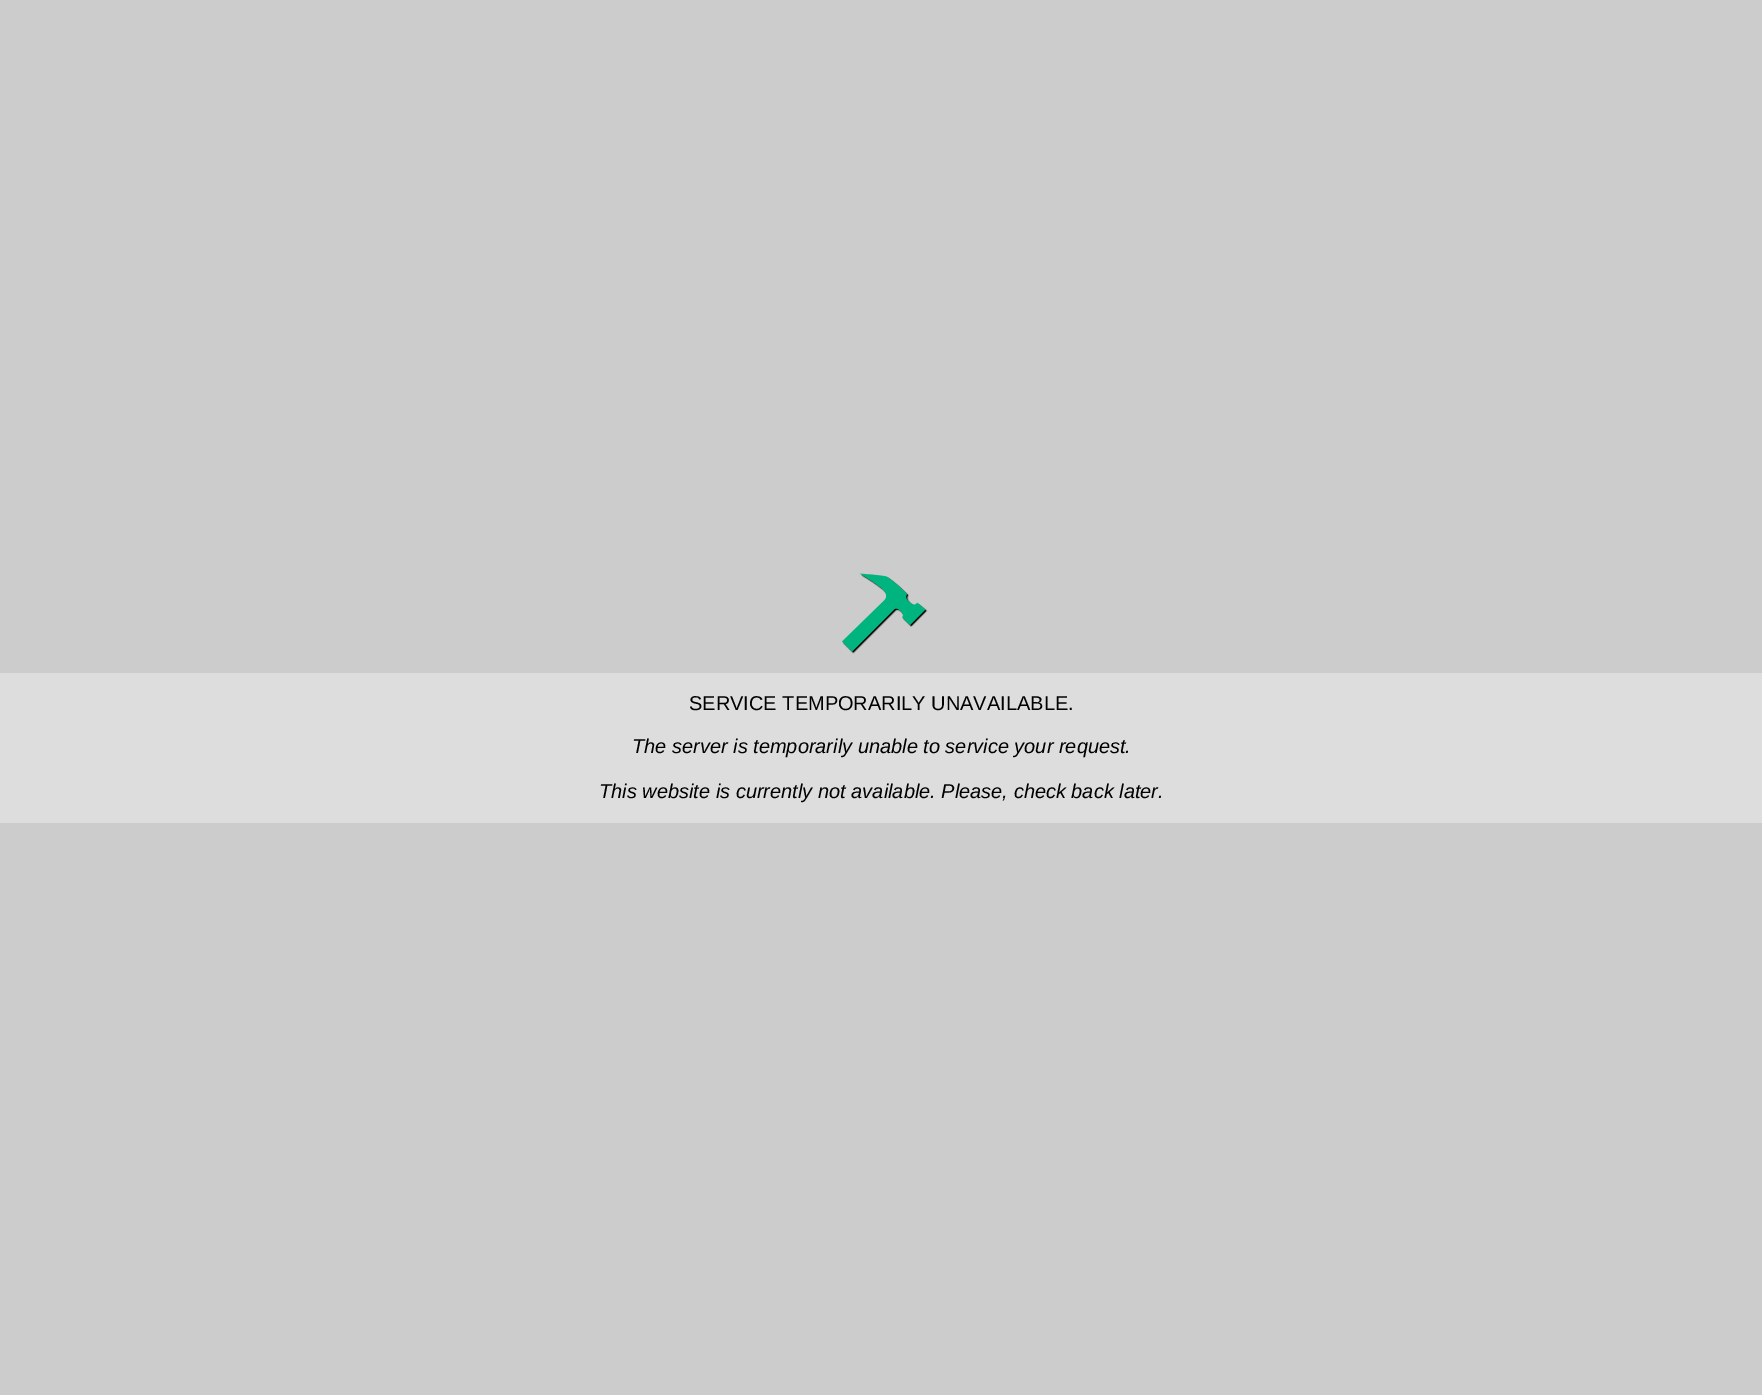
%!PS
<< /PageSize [1762 1395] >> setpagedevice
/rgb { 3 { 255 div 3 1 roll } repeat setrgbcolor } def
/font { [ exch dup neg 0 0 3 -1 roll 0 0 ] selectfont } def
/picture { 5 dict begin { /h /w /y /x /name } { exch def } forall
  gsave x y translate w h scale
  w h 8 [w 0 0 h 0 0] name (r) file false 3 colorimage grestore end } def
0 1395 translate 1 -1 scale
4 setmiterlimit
204 204 204 rgb
0 0 1762 1395 rectfill
(img/1.rgb) 842 573 86 81 picture
221 221 221 rgb
0 673 1762 150 rectfill
/LiberationSans-Regular 20 font
0 0 0 rgb
689 710 moveto (SERVICE TEMPORARILY UNAVAILABLE.) show
/LiberationSans-Italic 20 font
632 753 moveto (The server is temporarily unable to service your request.) show
599 798 moveto (This website is currently not available. Please, check back later.) show
showpage
